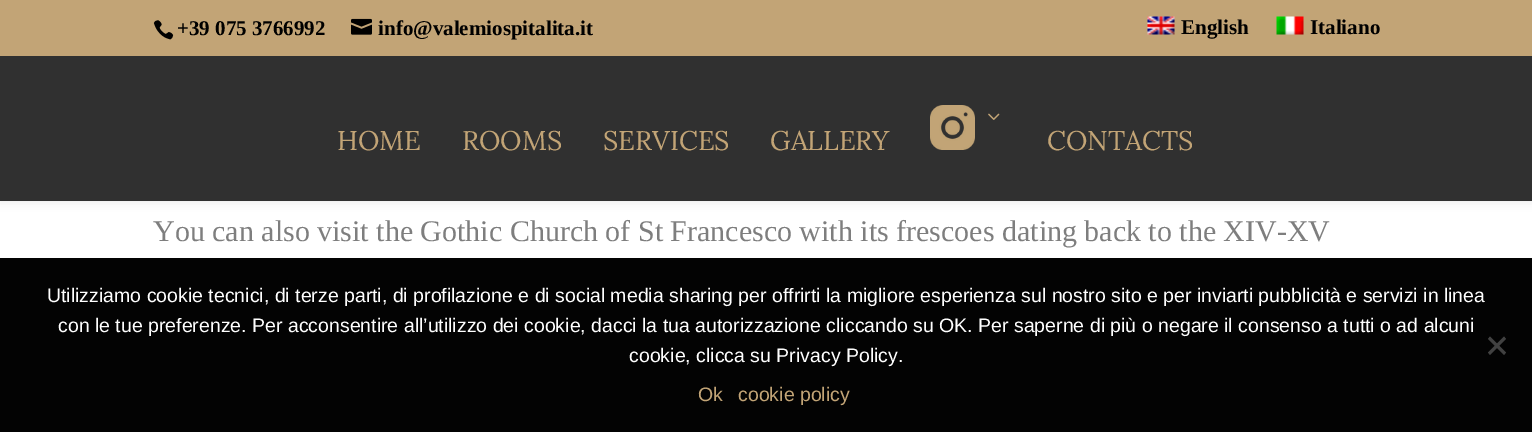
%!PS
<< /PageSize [1532 432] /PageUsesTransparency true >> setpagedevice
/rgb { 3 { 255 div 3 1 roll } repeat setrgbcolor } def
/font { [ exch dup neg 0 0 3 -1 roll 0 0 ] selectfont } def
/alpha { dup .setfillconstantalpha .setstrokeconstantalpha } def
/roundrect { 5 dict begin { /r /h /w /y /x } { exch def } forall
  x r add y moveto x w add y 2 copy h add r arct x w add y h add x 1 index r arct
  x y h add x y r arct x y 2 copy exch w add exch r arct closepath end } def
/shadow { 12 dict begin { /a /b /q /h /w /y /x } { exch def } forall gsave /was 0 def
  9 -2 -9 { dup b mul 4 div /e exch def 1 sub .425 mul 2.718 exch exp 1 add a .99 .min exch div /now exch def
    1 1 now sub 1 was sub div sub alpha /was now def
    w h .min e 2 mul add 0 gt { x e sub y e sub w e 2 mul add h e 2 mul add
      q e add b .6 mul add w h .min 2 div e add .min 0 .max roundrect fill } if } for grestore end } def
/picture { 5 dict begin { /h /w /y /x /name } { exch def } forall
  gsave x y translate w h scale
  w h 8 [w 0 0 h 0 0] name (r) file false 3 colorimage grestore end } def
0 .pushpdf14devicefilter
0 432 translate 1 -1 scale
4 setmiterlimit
255 255 255 rgb
0 0 1532 432 rectfill
3 3 3 rgb
0 258 1532 174 rectfill
0 0 0 rgb
0 56 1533 145 0 5 0.1 shadow
194 164 118 rgb
0 0 1532 56 rectfill
(img/1.rgb) 153 20 21 20 picture
(img/2.rgb) 351 18 21 17 picture
(img/3.rgb) 1147 16 28 19 picture
(img/4.rgb) 1276 16 28 19 picture
48 48 48 rgb
0 56 1532 145 rectfill
(img/5.rgb) 930 105 45 45 picture
(img/6.rgb) 988 113 12 7 picture
65 65 65 rgb
1504 336.5 moveto 1506 339 lineto 1490 355 lineto 1488 352.5 lineto closepath fill
1488 339 moveto 1490 336.5 lineto 1506 352.5 lineto 1504 355 lineto closepath fill
/LiberationSerif-Bold 21 font
0 0 0 rgb
[
  [(+39 075 3766992) 177 35]
  [(info@valemiospitalita.it) 378 35]
  [(English) 1181 34]
  [(Italiano) 1310 34]
] { aload pop moveto show } forall
/Lora-Regular 27 font
194 164 118 rgb
[
  [(HOME) 337 150]
  [(ROOMS) 462 150]
  [(SERVICES) 603 150]
  [(GALLERY) 770 150]
  [(CONTACTS) 1047 150]
] { aload pop moveto show } forall
/LiberationSerif-Regular 30 font
126 126 126 rgb
153 241 moveto (You can also visit the Gothic Church of St Francesco with its frescoes dating back to the XIV-XV) show
/LiberationSans-Regular 19.5 font
255 255 255 rgb
[
  [(Utilizziamo cookie tecnici, di terze parti, di profilazione e di social media sharing per offrirti la migliore esperienza sul nostro sito e per inviarti pubblicità e servizi in linea) 47 302]
  [(con le tue preferenze. Per acconsentire all’utilizzo dei cookie, dacci la tua autorizzazione cliccando su OK. Per saperne di più o negare il consenso a tutti o ad alcuni) 58 332]
  [(cookie, clicca su Privacy Policy.) 629 362]
] { aload pop moveto show } forall
194 164 118 rgb
698 401 moveto (Ok) show
738 401 moveto (cookie policy) show
.poppdf14devicefilter showpage
